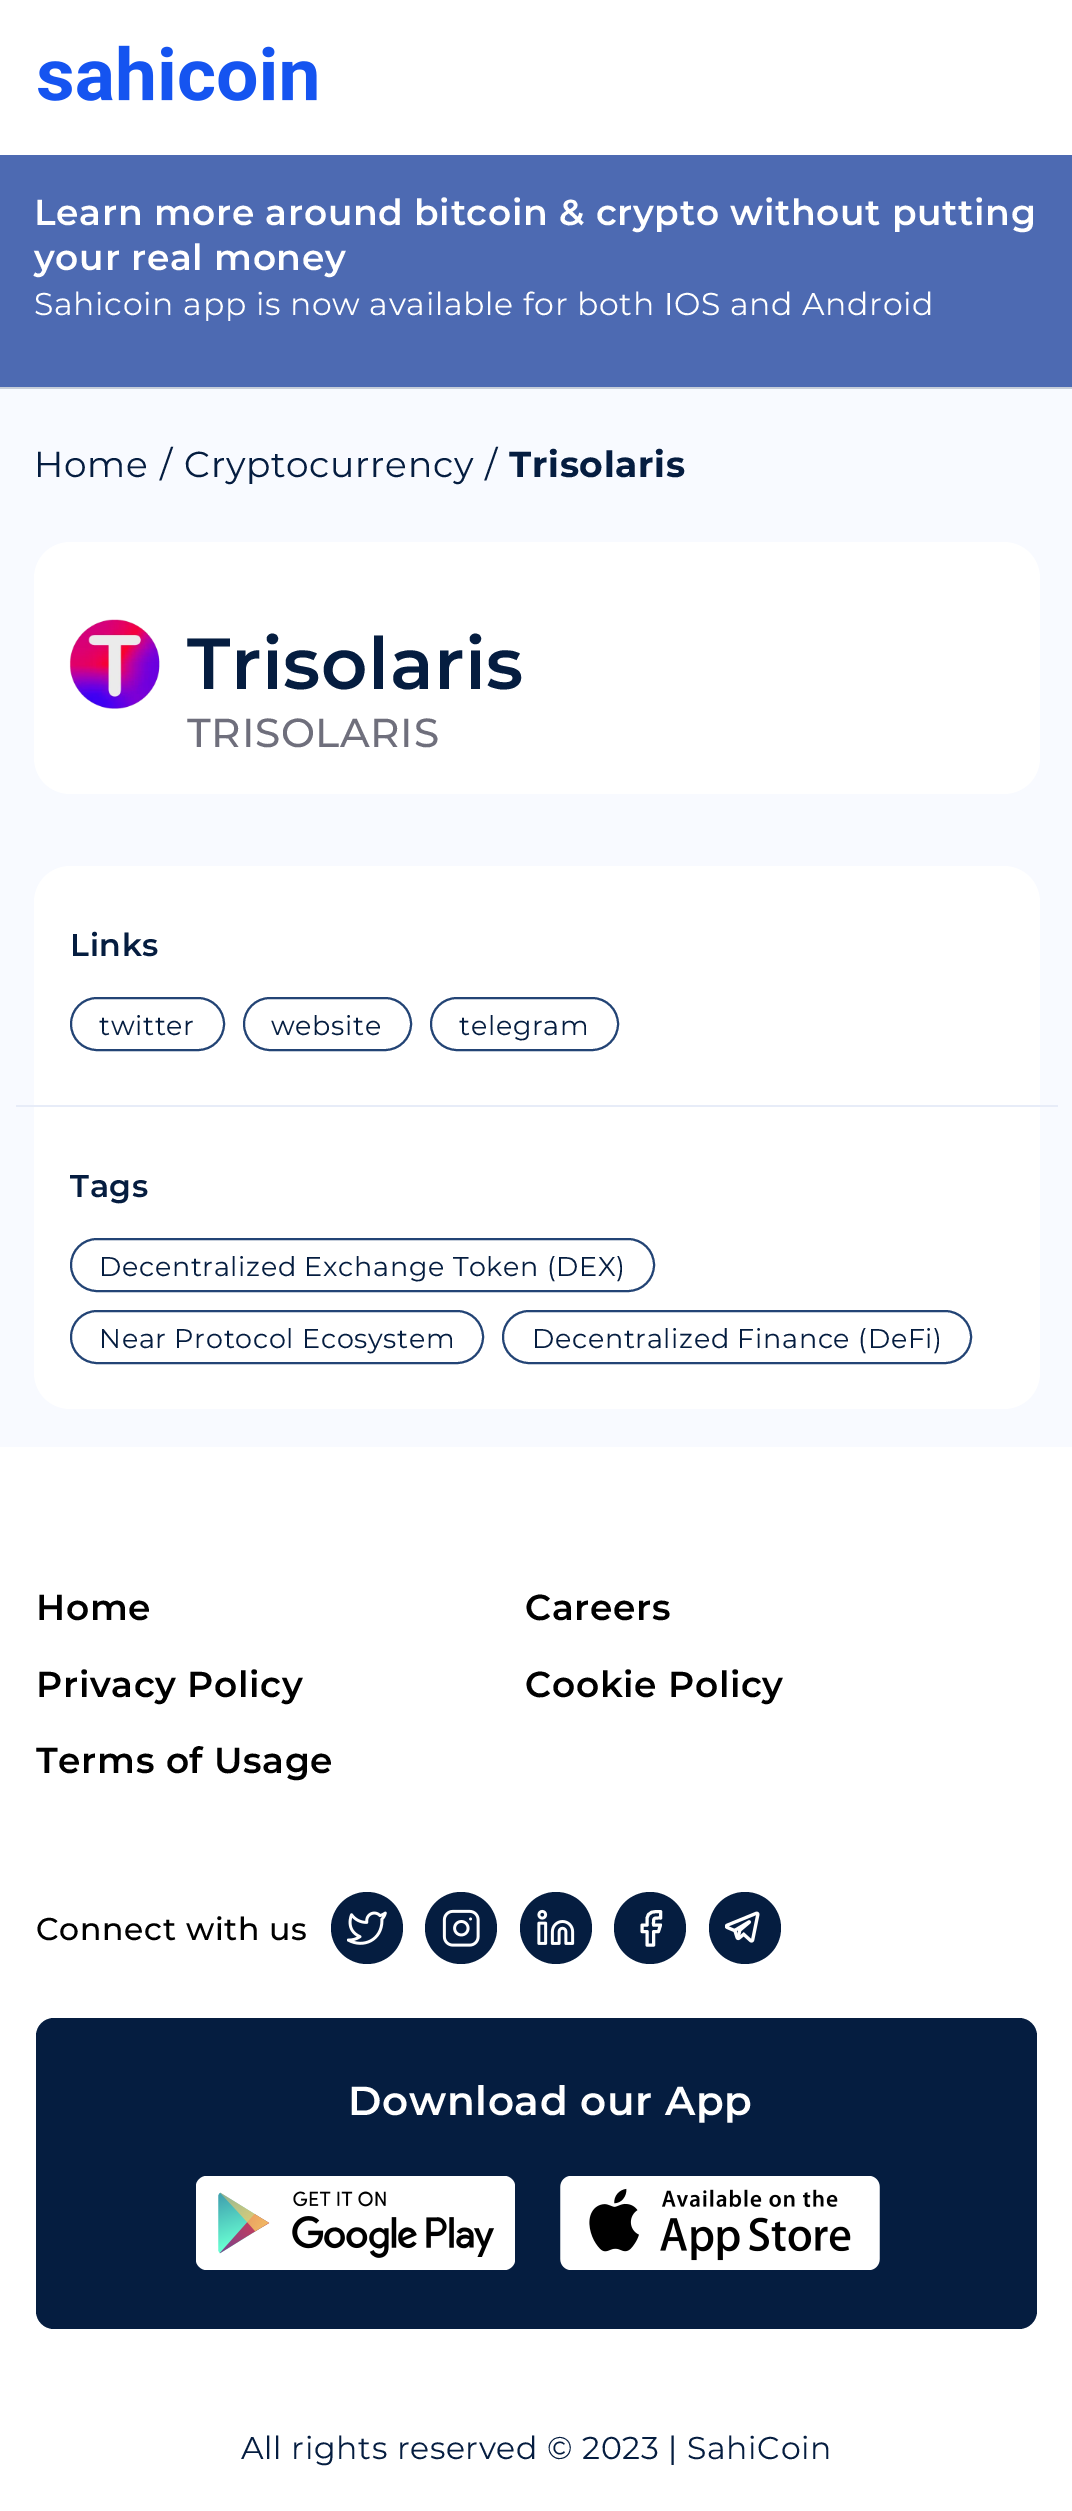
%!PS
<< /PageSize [1072 2511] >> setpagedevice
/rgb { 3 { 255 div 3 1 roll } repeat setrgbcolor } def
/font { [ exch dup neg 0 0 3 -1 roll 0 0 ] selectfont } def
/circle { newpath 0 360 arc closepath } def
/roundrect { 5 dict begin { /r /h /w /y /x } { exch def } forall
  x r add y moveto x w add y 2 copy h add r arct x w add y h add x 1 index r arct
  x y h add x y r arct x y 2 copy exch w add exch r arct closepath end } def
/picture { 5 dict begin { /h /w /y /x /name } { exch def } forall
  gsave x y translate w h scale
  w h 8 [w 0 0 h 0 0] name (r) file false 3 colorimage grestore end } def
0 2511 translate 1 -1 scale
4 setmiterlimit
255 255 255 rgb
0 0 1072 2511 rectfill
(img/1.rgb) 38 45 279 56 picture
[
  [0 389 1072 1058 248 250 255]
  [0 155 1072 232 77 106 178]
  [0 387 1072 2 199 206 217]
] { aload pop rgb rectfill } forall
255 255 255 rgb
34 542 1006 252 36 roundrect fill
(img/2.rgb) 69 619 91 90 picture
34 866 1006 543 36 roundrect fill
35 68 117 rgb
2 setlinewidth
71 998 153 52 26 roundrect stroke
244 998 167 52 26 roundrect stroke
431 998 187 52 26 roundrect stroke
231 236 248 rgb
16 1105 1042 2 rectfill
35 68 117 rgb
71 1239 583 52 26 roundrect stroke
71 1311 412 52 26 roundrect stroke
503 1311 468 52 26 roundrect stroke
5 29 64 rgb
367 1928 36 circle fill
(img/3.rgb) 347 1911 40 34 picture
461 1928 36 circle fill
(img/4.rgb) 442 1909 38 38 picture
556 1928 36 circle fill
(img/5.rgb) 537 1909 38 36 picture
650 1928 36 circle fill
255 255 255 rgb
3 setlinewidth
1 setlinecap
1 setlinejoin
660.5 1911.5 moveto 654.5 1911.5 647.5 1911 647 1919 curveto 647 1925 lineto 642 1925 lineto 642 1931.5 lineto 647 1931.5 lineto 647 1945 lineto 653.5 1945 lineto 653.5 1931.5 lineto 658.5 1931.5 lineto 660.5 1925 lineto 653.5 1925 lineto 653.5 1917.5 653 1918 660.5 1918 curveto closepath stroke
5 29 64 rgb
745 1928 36 circle fill
(img/6.rgb) 725 1911 35 32 picture
36 2018 1001 311 18 roundrect fill
(img/7.rgb) 196 2176 319 94 picture
(img/8.rgb) 560 2176 320 94 picture
/Montserrat-SemiBold 36 font
255 255 255 rgb
34 225 moveto 0.67 0 (Learn more around bitcoin & crypto without putting) ashow
34 270 moveto 0.67 0 (your real money) ashow
/Montserrat-Regular 31.5 font
34 315 moveto 0.67 0 (Sahicoin app is now available for both IOS and Android) ashow
/Montserrat-Regular 36 font
5 29 64 rgb
34 477 moveto 0.67 0 (Home) ashow
160 477 moveto 0.67 0 (/) ashow
184 477 moveto 0.67 0 (Cryptocurrency) ashow
485 477 moveto 0.67 0 (/) ashow
/Montserrat-Bold 36 font
509 477 moveto 0.67 0 (Trisolaris) ashow
/Montserrat-SemiBold 72 font
187 689 moveto 0.67 0 (Trisolaris) ashow
/Montserrat-Medium 40.5 font
111 111 124 rgb
187 747 moveto 0.67 0 (TRISOLARIS) ashow
/Montserrat-SemiBold 31.5 font
5 29 64 rgb
70 956 moveto 0.67 0 (Links) ashow
/Montserrat-Regular 27 font
99 1035 moveto 0.67 0 (twitter) ashow
271 1035 moveto 0.67 0 (website) ashow
459 1035 moveto 0.67 0 (telegram) ashow
/Montserrat-SemiBold 31.5 font
70 1197 moveto 0.67 0 (Tags) ashow
/Montserrat-Regular 27 font
99 1276 moveto 0.67 0 (Decentralized Exchange Token \(DEX\)) ashow
99 1348 moveto 0.67 0 (Near Protocol Ecosystem) ashow
532 1348 moveto 0.67 0 (Decentralized Finance \(DeFi\)) ashow
/Montserrat-SemiBold 36 font
0 0 0 rgb
36 1620 moveto 0.67 0 (Home) ashow
525 1620 moveto 0.67 0 (Careers) ashow
36 1697 moveto 0.67 0 (Privacy Policy) ashow
525 1697 moveto 0.67 0 (Cookie Policy) ashow
36 1773 moveto 0.67 0 (Terms of Usage) ashow
/Montserrat-Medium 31.5 font
36 1940 moveto 0.67 0 (Connect with us) ashow
/Montserrat-SemiBold 40.5 font
255 255 255 rgb
348 2115 moveto 0.67 0 (Download our App) ashow
/Montserrat-Regular 31.5 font
5 29 64 rgb
241 2459 moveto 0.67 0 (All rights reserved © 2023 | SahiCoin) ashow
showpage
